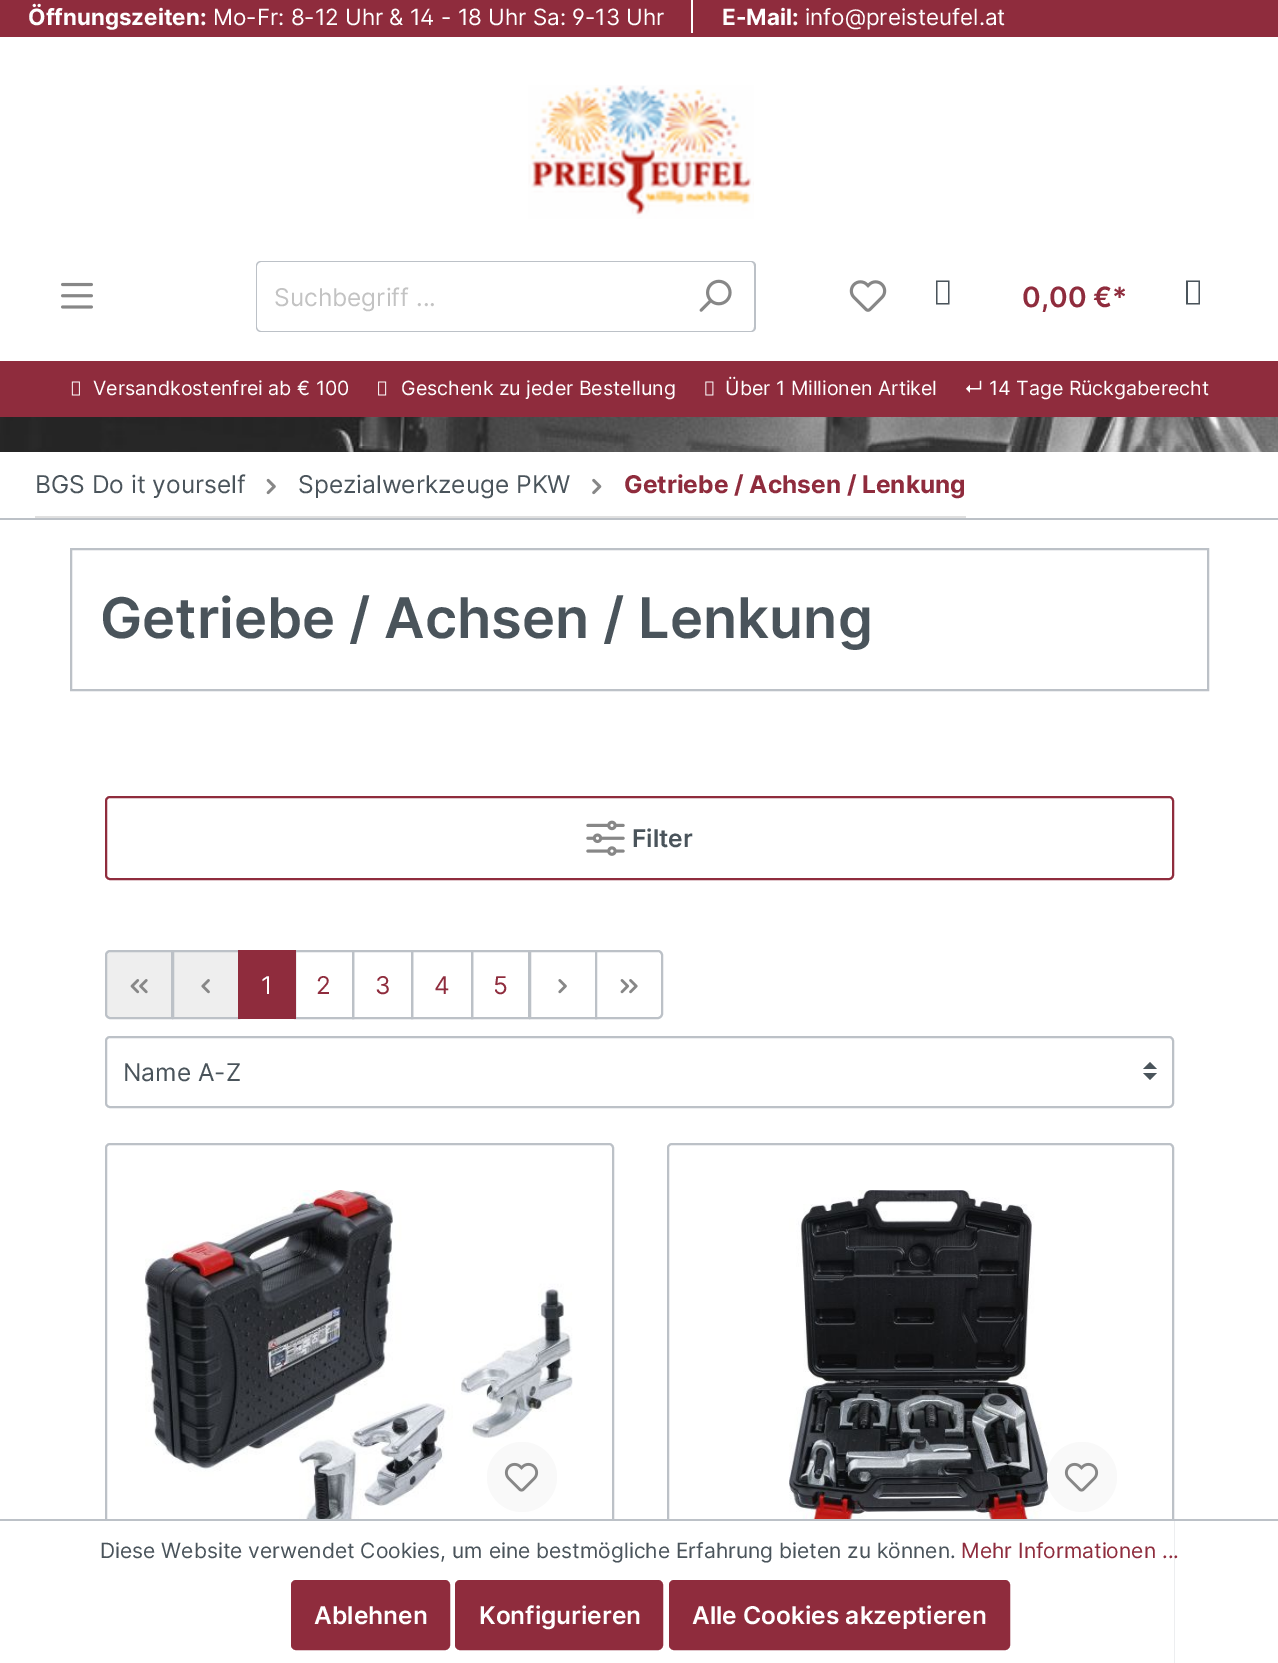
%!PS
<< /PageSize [1278 1663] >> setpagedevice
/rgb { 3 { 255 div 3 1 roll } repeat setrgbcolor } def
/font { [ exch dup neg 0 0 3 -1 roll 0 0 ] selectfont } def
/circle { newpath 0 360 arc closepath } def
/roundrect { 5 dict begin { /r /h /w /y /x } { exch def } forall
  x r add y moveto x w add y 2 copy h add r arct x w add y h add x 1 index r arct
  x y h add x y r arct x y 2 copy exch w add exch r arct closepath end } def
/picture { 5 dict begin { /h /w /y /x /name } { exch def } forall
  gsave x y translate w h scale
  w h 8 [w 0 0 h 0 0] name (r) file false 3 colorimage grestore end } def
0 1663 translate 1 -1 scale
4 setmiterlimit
255 255 255 rgb
0 0 1278 1663 rectfill
143 44 61 rgb
0 0 1278 37 rectfill
255 255 255 rgb
691 0 2 33 rectfill
(img/1.rgb) 528 85 226 134 picture
(img/2.rgb) 61 282 32 27 picture
188 193 199 rgb
261 261 moveto 676 261 lineto 676 332 lineto 261 332 lineto 258 332 256 330 256 327 curveto 256 266 lineto 256 263 258 261 261 261 curveto closepath 261 262 moveto 676 262 lineto 676 331 lineto 261 331 lineto 259 331 257 329 257 327 curveto 257 266 lineto 257 264 259 262 261 262 curveto closepath eofill
255 255 255 rgb
674 261 moveto 751 261 lineto 754 261 756 263 756 266 curveto 756 328 lineto 756 331 754 333 751 333 curveto 674 333 lineto closepath fill
188 193 199 rgb
674 261 moveto 751 261 lineto 754 261 756 263 756 266 curveto 756 327 lineto 756 330 754 332 751 332 curveto 674 332 lineto closepath 674 262 moveto 751 262 lineto 753 262 754 264 754 266 curveto 754 327 lineto 754 329 753 331 751 331 curveto 674 331 lineto closepath eofill
(img/3.rgb) 699 279 33 33 picture
(img/4.rgb) 849 280 38 32 picture
74 84 91 rgb
936 304.5 moveto 936 280.5 lineto 949.5 280.5 lineto 949.5 304.5 lineto closepath 937.5 303 moveto 948 303 lineto 948 282 lineto 937.5 282 lineto closepath fill
1186 304.5 moveto 1186 280.5 lineto 1200 280.5 lineto 1200 304.5 lineto closepath 1188 303 moveto 1198.5 303 lineto 1198.5 282 lineto 1188 282 lineto closepath fill
143 44 61 rgb
0 361 1278 56 rectfill
(img/5.rgb) 71 381 9 15 picture
(img/6.rgb) 378 381 9 15 picture
(img/7.rgb) 705 381 9 15 picture
(img/8.rgb) 0 417 1278 35 picture
188 193 199 rgb
0 518 1278 2 rectfill
224 224 224 rgb
35 516 931 2 rectfill
(img/9.rgb) 266 478 10 17 picture
(img/10.rgb) 592 478 10 17 picture
188 193 199 rgb
2 setlinewidth
71 549 1137 141 rectstroke
143 44 61 rgb
106 797 1067 82 4 roundrect stroke
(img/11.rgb) 586 820 39 36 picture
238 238 238 rgb
110 951 moveto 172 951 lineto 172 1018 lineto 110 1018 lineto 108 1018 106 1016 106 1014 curveto 106 955 lineto 106 953 108 951 110 951 curveto closepath gsave fill grestore
188 193 199 rgb
stroke
(img/12.rgb) 130 979 18 15 picture
238 238 238 rgb
173 951 moveto 239 951 lineto 239 1018 lineto 173 1018 lineto closepath gsave fill grestore
188 193 199 rgb
stroke
(img/13.rgb) 201 979 9 15 picture
295 951 58 67 rectstroke
143 44 61 rgb
238 950 58 69 rectfill
188 193 199 rgb
353 951 59 67 rectstroke
412 951 60 67 rectstroke
472 951 57 67 rectstroke
530 951 66 67 rectstroke
(img/14.rgb) 558 979 9 15 picture
255 255 255 rgb
596 951 moveto 658 951 lineto 660 951 662 953 662 955 curveto 662 1014 lineto 662 1016 660 1018 658 1018 curveto 596 1018 lineto closepath gsave fill grestore
188 193 199 rgb
stroke
(img/15.rgb) 620 979 18 15 picture
74 84 91 rgb
1150 1062 moveto 1143 1069 lineto 1157 1069 lineto closepath 1150 1080 moveto 1143 1073 lineto 1157 1073 lineto closepath fill
188 193 199 rgb
106 1037 1067 70 4 roundrect stroke
106 1144 507 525 4 roundrect stroke
(img/16.rgb) 145 1190 428 329 picture
249 249 249 rgb
522 1477 35 circle fill
(img/17.rgb) 504 1462 35 30 picture
188 193 199 rgb
668 1144 505 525 4 roundrect stroke
(img/18.rgb) 789 1190 261 329 picture
249 249 249 rgb
1082 1477 35 circle fill
(img/17.rgb) 1064 1462 35 30 picture
255 255 255 rgb
105 1521 1069 142 rectfill
188 193 199 rgb
0 1519 1278 2 rectfill
143 44 61 rgb
292 1581 157 68 4 roundrect gsave fill grestore
stroke
456 1581 206 68 4 roundrect gsave fill grestore
stroke
670 1581 339 68 4 roundrect gsave fill grestore
stroke
/Inter-Bold 22.4 font
255 255 255 rgb
28 25 moveto (Öffnungszeiten:) show
/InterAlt-Regular 22.4 font
213 25 moveto (Mo-Fr: 8-12 Uhr & 14 - 18 Uhr Sa: 9-13 Uhr) show
/Inter-Bold 22.4 font
722 25 moveto (E-Mail:) show
/Inter-Regular 22.4 font
805 25 moveto (info@preisteufel.at) show
/Inter-Regular 24.5 font
195 195 195 rgb
274 306 moveto (Suchbegriff ...) show
/Inter-SemiBold 28 font
143 44 61 rgb
1022 307 moveto (0,00 €*) show
/Inter-Regular 19.6 font
255 255 255 rgb
[
  [(Versandkostenfrei ab € 100) 93 395]
  [(Geschenk zu jeder Bestellung) 401 395]
  [(Über 1 Millionen Artikel) 725 395]
  [(↵ 14 Tage Rückgaberecht) 964 395]
] { aload pop moveto show } forall
/Inter-Regular 24.5 font
74 84 91 rgb
35 493 moveto (BGS Do it yourself) show
298 493 moveto (Spezialwerkzeuge PKW) show
/Inter-Bold 24.5 font
143 44 61 rgb
624 493 moveto (Getriebe / Achsen / Lenkung) show
/Inter-SemiBold 56 font
74 84 91 rgb
100 638 moveto (Getriebe / Achsen / Lenkung) show
/Inter-SemiBold 24.5 font
632 847 moveto (Filter) show
/Inter-Regular 24.5 font
255 255 255 rgb
261 994 moveto (1) show
143 44 61 rgb
[
  [(2) 316 994]
  [(3) 375 994]
  [(4) 434 994]
  [(5) 493 994]
] { aload pop moveto show } forall
74 84 91 rgb
123 1081 moveto (Name A-Z) show
/Inter-Regular 21 font
100 1558 moveto (Diese Website verwendet Cookies, um eine bestmögliche Erfahrung bieten zu können.) show
143 44 61 rgb
961 1558 moveto (Mehr Informationen ...) show
/Inter-SemiBold 24.5 font
255 255 255 rgb
[
  [(Ablehnen) 314 1624]
  [(Konfigurieren) 479 1624]
  [(Alle Cookies akzeptieren) 692 1624]
] { aload pop moveto show } forall
showpage
